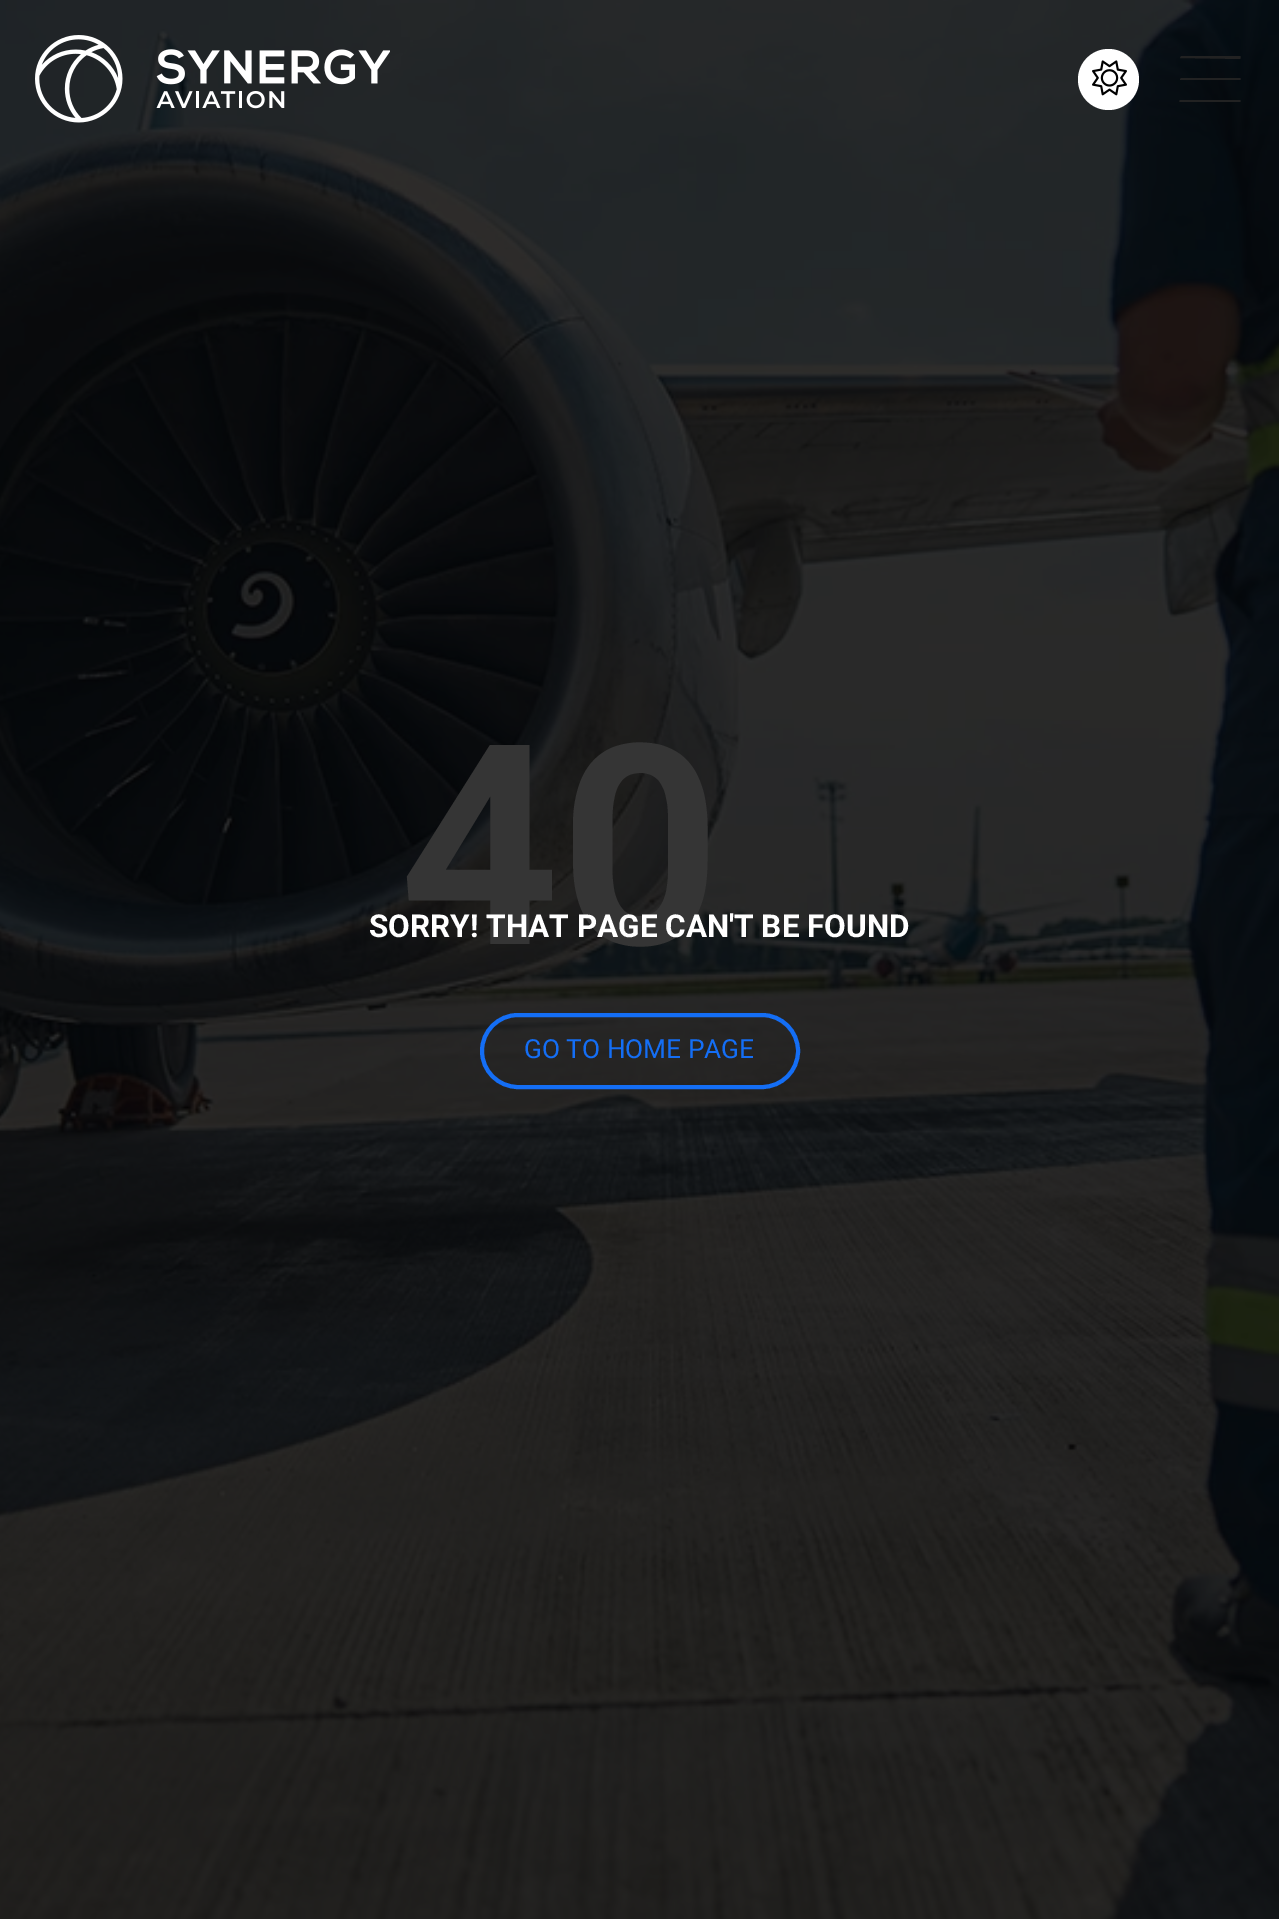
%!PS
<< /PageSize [1279 1919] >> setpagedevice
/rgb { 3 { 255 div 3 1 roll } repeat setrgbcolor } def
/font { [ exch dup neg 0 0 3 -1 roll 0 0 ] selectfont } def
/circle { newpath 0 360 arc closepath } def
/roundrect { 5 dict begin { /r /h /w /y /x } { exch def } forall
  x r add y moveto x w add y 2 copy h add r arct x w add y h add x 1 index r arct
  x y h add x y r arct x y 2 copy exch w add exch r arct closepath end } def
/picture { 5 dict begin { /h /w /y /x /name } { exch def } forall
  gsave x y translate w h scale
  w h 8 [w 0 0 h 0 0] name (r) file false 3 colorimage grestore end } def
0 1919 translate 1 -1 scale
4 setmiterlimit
255 255 255 rgb
0 0 1279 1919 rectfill
(img/3.rgb) 0 0 1279 1919 picture
(img/1.rgb) 35 35 355 88 picture
1108.5 79.5 30.5 circle fill
(img/2.rgb) 1092 60 35 36 picture
34 34 34 rgb
1180 58 moveto 1181 56 lineto 1240 56 lineto 1241 56 1241 58 1240 59 curveto closepath 1180 79 moveto 1181 78 lineto 1240 78 lineto 1241 78 1241 80 1240 80 curveto 1180 80 lineto closepath 1241 101 moveto 1240 102 lineto 1181 102 lineto 1179 102 1179 101 1180 100 curveto 1240 100 lineto closepath fill
20 110 245 rgb
4 setlinewidth
482 1015 316 72 36 roundrect stroke
/Roboto-Bold 280 font
53 53 53 rgb
399 944 moveto (40) show
/Roboto-Bold 31.5 font
255 255 255 rgb
369 937 moveto (SORRY! THAT PAGE CAN'T BE FOUND) show
/Roboto-Regular 26.25 font
20 110 245 rgb
524 1058 moveto (GO TO HOME PAGE) show
showpage
